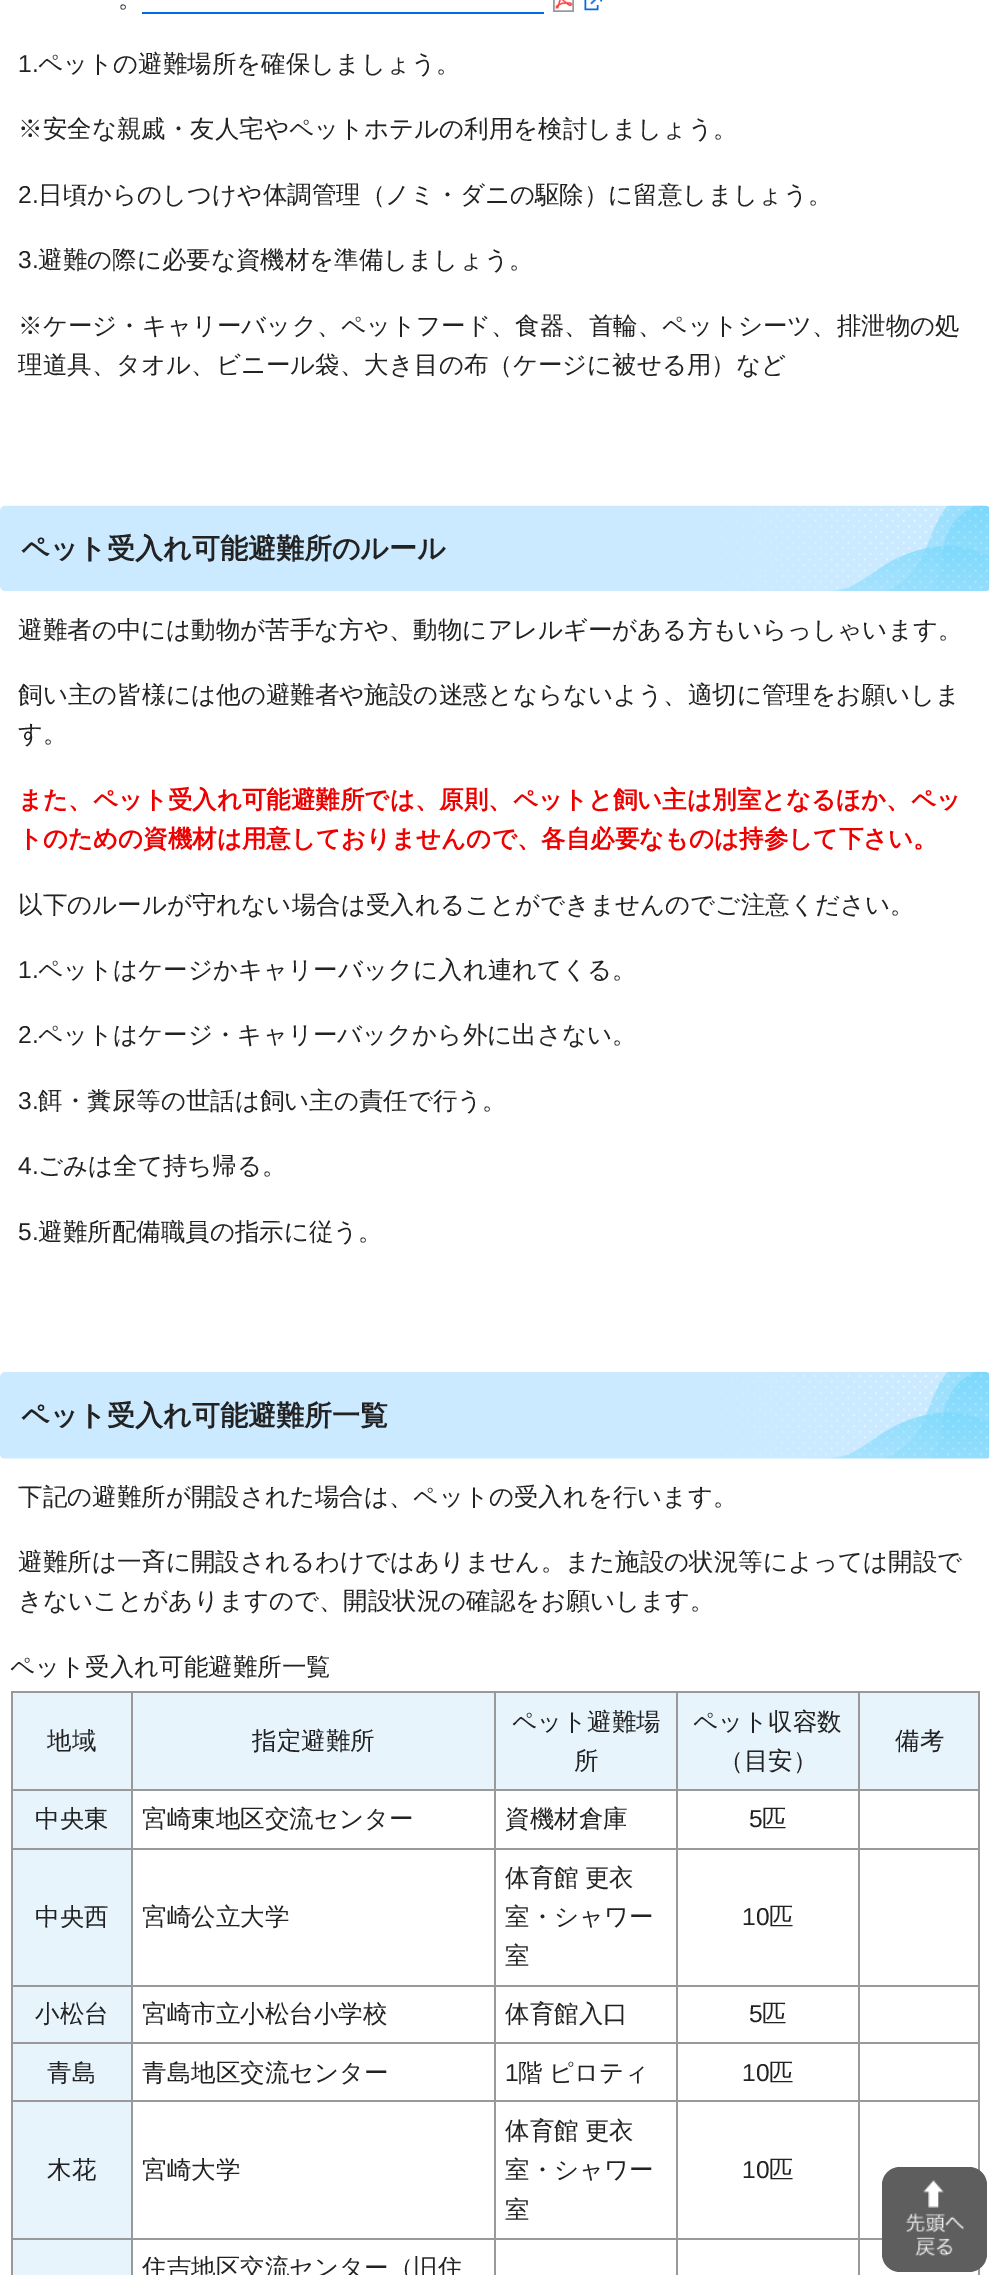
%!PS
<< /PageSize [989 2275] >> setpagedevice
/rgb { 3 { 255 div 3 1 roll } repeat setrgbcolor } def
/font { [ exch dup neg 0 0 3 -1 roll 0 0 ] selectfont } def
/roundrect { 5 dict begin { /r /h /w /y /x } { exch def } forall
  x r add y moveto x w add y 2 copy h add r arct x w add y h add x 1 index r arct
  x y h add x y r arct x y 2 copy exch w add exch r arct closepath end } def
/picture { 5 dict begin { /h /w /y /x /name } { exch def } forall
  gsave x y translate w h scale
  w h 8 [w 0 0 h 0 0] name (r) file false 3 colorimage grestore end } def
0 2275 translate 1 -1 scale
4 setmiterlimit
255 255 255 rgb
0 0 989 2275 rectfill
(img/1.rgb) 553 0 21 12 picture
(img/2.rgb) 584 0 18 11 picture
0 106 227 rgb
142 12 402 2 rectfill
(img/3.rgb) 0 505 989 87 picture
(img/4.rgb) 0 1371 989 88 picture
[
  [13 1693 118 96 232 244 252]
  [858 1691 122 2 153 153 153]
  [858 1789 122 2 153 153 153]
  [858 1848 122 2 153 153 153]
  [858 1985 122 2 153 153 153]
  [858 2042 122 2 153 153 153]
  [858 2100 122 2 153 153 153]
  [858 2238 24 2 153 153 153]
  [858 2238 2 37 153 153 153]
  [676 2238 183 2 153 153 153]
  [858 2100 2 140 153 153 153]
  [676 2100 183 2 153 153 153]
  [858 2042 2 60 153 153 153]
  [676 2042 183 2 153 153 153]
  [858 1985 2 59 153 153 153]
  [676 1985 183 2 153 153 153]
  [858 1848 2 138 153 153 153]
  [676 1848 183 2 153 153 153]
  [858 1789 2 61 153 153 153]
  [676 1789 183 2 153 153 153]
  [858 1691 2 99 153 153 153]
  [676 1691 183 2 153 153 153]
  [676 2238 2 37 153 153 153]
  [494 2238 183 2 153 153 153]
  [676 2100 2 140 153 153 153]
  [494 2100 183 2 153 153 153]
  [676 2042 2 60 153 153 153]
  [494 2042 183 2 153 153 153]
  [676 1985 2 59 153 153 153]
  [494 1985 183 2 153 153 153]
  [676 1848 2 138 153 153 153]
  [494 1848 183 2 153 153 153]
  [676 1789 2 61 153 153 153]
  [494 1789 183 2 153 153 153]
  [676 1691 2 99 153 153 153]
  [494 1691 183 2 153 153 153]
  [494 2238 2 37 153 153 153]
  [131 2238 364 2 153 153 153]
  [494 2100 2 140 153 153 153]
  [131 2100 364 2 153 153 153]
  [494 2042 2 60 153 153 153]
  [131 2042 364 2 153 153 153]
  [494 1985 2 59 153 153 153]
  [131 1985 364 2 153 153 153]
  [494 1848 2 138 153 153 153]
  [131 1848 364 2 153 153 153]
  [494 1789 2 61 153 153 153]
  [131 1789 364 2 153 153 153]
  [494 1691 2 99 153 153 153]
  [131 1691 364 2 153 153 153]
  [131 2238 2 37 153 153 153]
  [11 2238 122 2 153 153 153]
  [131 2100 2 140 153 153 153]
  [11 2100 122 2 153 153 153]
  [131 2042 2 60 153 153 153]
  [11 2042 122 2 153 153 153]
  [131 1985 2 59 153 153 153]
  [11 1985 122 2 153 153 153]
  [131 1848 2 138 153 153 153]
  [11 1848 122 2 153 153 153]
  [131 1789 2 61 153 153 153]
  [11 1789 122 2 153 153 153]
  [131 1691 2 99 153 153 153]
  [11 1691 122 2 153 153 153]
  [11 2238 2 37 153 153 153]
  [11 2100 2 140 153 153 153]
  [11 2042 2 60 153 153 153]
  [11 1985 2 59 153 153 153]
  [11 1848 2 138 153 153 153]
  [11 1789 2 61 153 153 153]
  [11 1691 2 99 153 153 153]
  [133 1693 361 96 232 244 252]
  [496 1693 180 96 232 244 252]
  [678 1693 180 96 232 244 252]
  [860 1693 118 96 232 244 252]
  [978 2100 2 71 153 153 153]
  [978 2042 2 60 153 153 153]
  [978 1985 2 59 153 153 153]
  [978 1848 2 138 153 153 153]
  [978 1789 2 61 153 153 153]
  [978 1691 2 99 153 153 153]
  [13 1791 118 57 232 244 252]
  [13 1850 118 135 232 244 252]
  [13 1987 118 55 232 244 252]
  [13 2044 118 56 232 244 252]
  [13 2102 118 136 232 244 252]
  [13 2240 118 35 232 244 252]
  [978 2268 2 7 153 153 153]
] { aload pop rgb rectfill } forall
94 94 94 rgb
882 2167 105 105 18 roundrect fill
(img/5.rgb) 905 2180 60 76 picture
/WenQuanYiZenHei-Medium 24.5 font
34 34 34 rgb
118 7 moveto (。) show
/LiberationSans-Regular 24.5 font
18 72 moveto (1.) show
/WenQuanYiZenHei-Medium 24.5 font
38 72 moveto (ペットの避難場所を確保しましょう。) show
18 137 moveto (※安全な親戚・友人宅やペットホテルの利用を検討しましょう。) show
/LiberationSans-Regular 24.5 font
18 203 moveto (2.) show
/WenQuanYiZenHei-Medium 24.5 font
38 203 moveto (日頃からのしつけや体調管理（ノミ・ダニの駆除）に留意しましょう。) show
/LiberationSans-Regular 24.5 font
18 268 moveto (3.) show
/WenQuanYiZenHei-Medium 24.5 font
[
  [(避難の際に必要な資機材を準備しましょう。) 38 268]
  [(※ケージ・キャリーバック、ペットフード、食器、首輪、ペットシーツ、排泄物の処) 18 334]
  [(理道具、タオル、ビニール袋、大き目の布（ケージに被せる用）など) 18 373]
] { aload pop moveto show } forall
/WenQuanYiZenHei-Bold 28 font
21 558 moveto (ペット受入れ可能避難所のルール) show
/WenQuanYiZenHei-Medium 24.5 font
[
  [(避難者の中には動物が苦手な方や、動物にアレルギーがある方もいらっしゃいます。) 18 638]
  [(飼い主の皆様には他の避難者や施設の迷惑とならないよう、適切に管理をお願いしま) 18 703]
  [(す。) 18 742]
] { aload pop moveto show } forall
/WenQuanYiZenHei-Bold 24.5 font
238 0 0 rgb
18 808 moveto (また、ペット受入れ可能避難所では、原則、ペットと飼い主は別室となるほか、ペッ) show
18 847 moveto (トのための資機材は用意しておりませんので、各自必要なものは持参して下さい。) show
/WenQuanYiZenHei-Medium 24.5 font
34 34 34 rgb
18 913 moveto (以下のルールが守れない場合は受入れることができませんのでご注意ください。) show
/LiberationSans-Regular 24.5 font
18 978 moveto (1.) show
/WenQuanYiZenHei-Medium 24.5 font
38 978 moveto (ペットはケージかキャリーバックに入れ連れてくる。) show
/LiberationSans-Regular 24.5 font
18 1043 moveto (2.) show
/WenQuanYiZenHei-Medium 24.5 font
38 1043 moveto (ペットはケージ・キャリーバックから外に出さない。) show
/LiberationSans-Regular 24.5 font
18 1109 moveto (3.) show
/WenQuanYiZenHei-Medium 24.5 font
38 1109 moveto (餌・糞尿等の世話は飼い主の責任で行う。) show
/LiberationSans-Regular 24.5 font
18 1174 moveto (4.) show
/WenQuanYiZenHei-Medium 24.5 font
38 1174 moveto (ごみは全て持ち帰る。) show
/LiberationSans-Regular 24.5 font
18 1240 moveto (5.) show
/WenQuanYiZenHei-Medium 24.5 font
38 1240 moveto (避難所配備職員の指示に従う。) show
/WenQuanYiZenHei-Bold 28 font
21 1425 moveto (ペット受入れ可能避難所一覧) show
/WenQuanYiZenHei-Medium 24.5 font
[
  [(下記の避難所が開設された場合は、ペットの受入れを行います。) 18 1505]
  [(避難所は一斉に開設されるわけではありません。また施設の状況等によっては開設で) 18 1570]
  [(きないことがありますので、開設状況の確認をお願いします。) 18 1609]
  [(ペット受入れ可能避難所一覧) 10 1675]
  [(地域) 47 1749]
  [(指定避難所) 252 1749]
  [(ペット避難場) 512 1730]
  [(所) 574 1769]
  [(ペット収容数) 693 1730]
  [(（目安）) 719 1769]
  [(備考) 895 1749]
  [(中央東) 35 1827]
  [(宮崎東地区交流センター) 142 1827]
  [(資機材倉庫) 505 1827]
] { aload pop moveto show } forall
/LiberationSans-Regular 24.5 font
749 1827 moveto (5) show
/WenQuanYiZenHei-Medium 24.5 font
[
  [(匹) 762 1827]
  [(中央西) 35 1925]
  [(宮崎公立大学) 142 1925]
] { aload pop moveto show } forall
505 1886 moveto -1 0 32 (体育館 更衣) widthshow
505 1925 moveto (室・シャワー) show
505 1964 moveto (室) show
/LiberationSans-Regular 24.5 font
742 1925 moveto (10) show
/WenQuanYiZenHei-Medium 24.5 font
[
  [(匹) 769 1925]
  [(小松台) 35 2022]
  [(宮崎市立小松台小学校) 142 2022]
  [(体育館入口) 505 2022]
] { aload pop moveto show } forall
/LiberationSans-Regular 24.5 font
749 2022 moveto (5) show
/WenQuanYiZenHei-Medium 24.5 font
[
  [(匹) 762 2022]
  [(青島) 47 2081]
  [(青島地区交流センター) 142 2081]
] { aload pop moveto show } forall
/LiberationSans-Regular 24.5 font
505 2081 moveto (1) show
/WenQuanYiZenHei-Medium 24.5 font
518 2081 moveto -1 0 32 (階 ピロティ) widthshow
/LiberationSans-Regular 24.5 font
742 2081 moveto (10) show
/WenQuanYiZenHei-Medium 24.5 font
[
  [(匹) 769 2081]
  [(木花) 47 2178]
  [(宮崎大学) 142 2178]
] { aload pop moveto show } forall
505 2139 moveto -1 0 32 (体育館 更衣) widthshow
505 2178 moveto (室・シャワー) show
505 2218 moveto (室) show
/LiberationSans-Regular 24.5 font
742 2178 moveto (10) show
/WenQuanYiZenHei-Medium 24.5 font
769 2178 moveto (匹) show
142 2276 moveto (住吉地区交流センター（旧住) show
showpage
